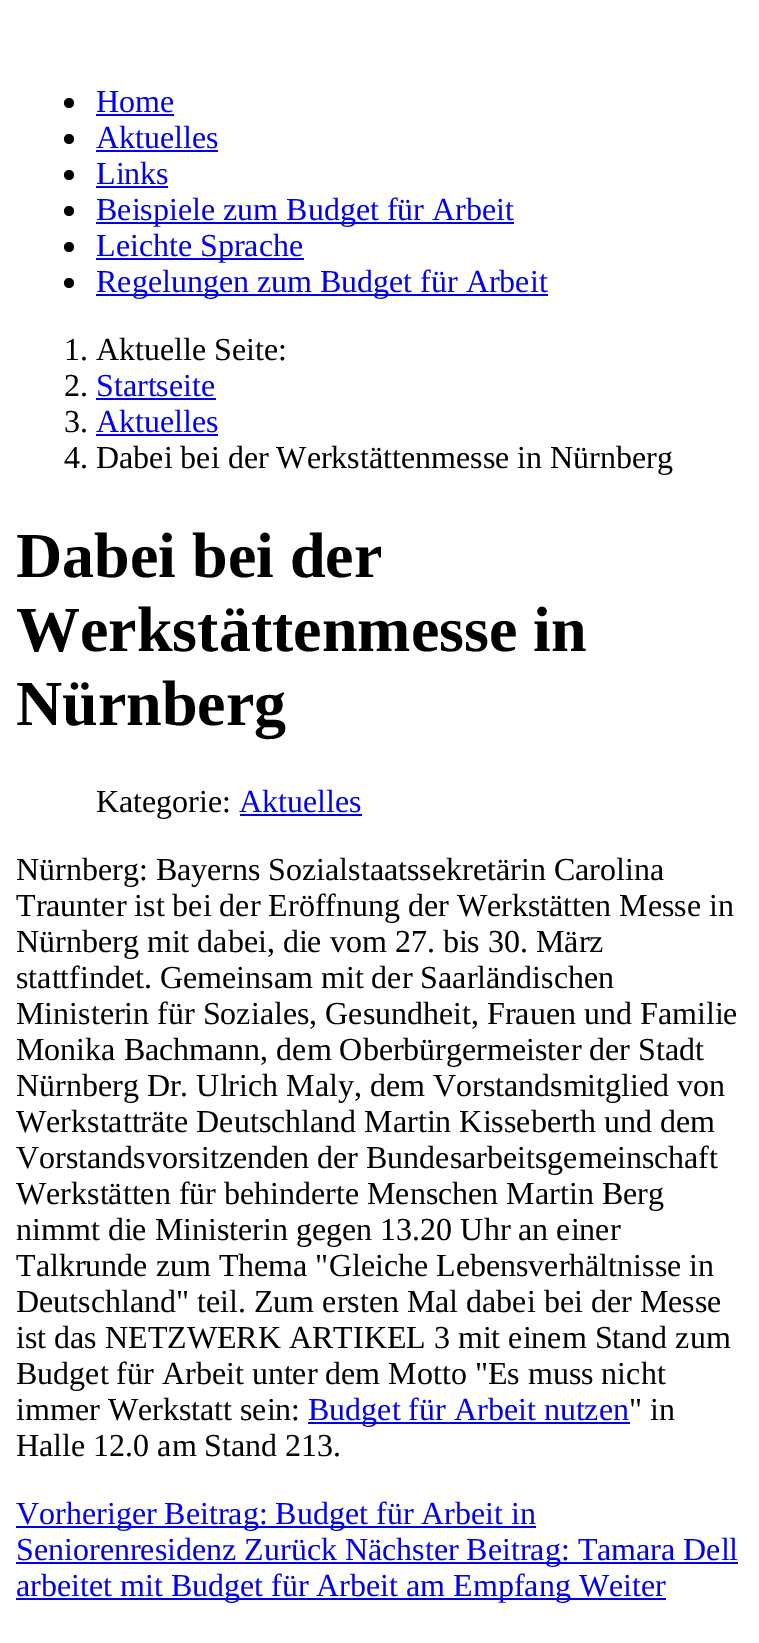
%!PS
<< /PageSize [759 1643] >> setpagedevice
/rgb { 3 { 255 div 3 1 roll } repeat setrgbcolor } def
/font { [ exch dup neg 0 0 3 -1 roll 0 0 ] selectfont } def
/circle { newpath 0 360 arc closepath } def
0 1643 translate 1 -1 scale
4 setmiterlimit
255 255 255 rgb
0 0 759 1643 rectfill
0 0 0 rgb
69 103 5 circle fill
0 0 238 rgb
96 114 78 2 rectfill
0 0 0 rgb
69 139 5 circle fill
0 0 238 rgb
96 150 122 2 rectfill
0 0 0 rgb
69 175 5 circle fill
0 0 238 rgb
96 186 72 2 rectfill
0 0 0 rgb
69 211 5 circle fill
0 0 238 rgb
96 222 418 2 rectfill
0 0 0 rgb
69 247 5 circle fill
0 0 238 rgb
96 258 208 2 rectfill
0 0 0 rgb
69 283 5 circle fill
[
  [96 294 452 2 0 0 238]
  [96 398 120 2 0 0 238]
  [96 434 122 2 0 0 238]
  [240 814 122 2 0 0 238]
  [308 1422 322 2 0 0 238]
  [16 1526 520 2 0 0 238]
  [16 1562 722 2 0 0 238]
  [16 1598 650 2 0 0 238]
] { aload pop rgb rectfill } forall
/LiberationSerif-Regular 32 font
[
  [(Home) 96 112]
  [(Aktuelles) 96 148]
  [(Links) 96 184]
  [(Beispiele zum Budget für Arbeit) 96 220]
  [(Leichte Sprache) 96 256]
  [(Regelungen zum Budget für Arbeit) 96 292]
] { aload pop moveto show } forall
0 0 0 rgb
64 360 moveto (1. Aktuelle Seite:) show
64 396 moveto (2.) show
0 0 238 rgb
96 396 moveto (Startseite) show
0 0 0 rgb
64 432 moveto (3.) show
0 0 238 rgb
96 432 moveto (Aktuelles) show
0 0 0 rgb
64 468 moveto (4. Dabei bei der Werkstättenmesse in Nürnberg) show
/LiberationSerif-Bold 64 font
[
  [(Dabei bei der) 16 577]
  [(Werkstättenmesse in) 16 651]
  [(Nürnberg) 16 725]
] { aload pop moveto show } forall
/LiberationSerif-Regular 32 font
96 812 moveto (Kategorie:) show
0 0 238 rgb
239 812 moveto (Aktuelles) show
0 0 0 rgb
[
  [(Nürnberg: Bayerns Sozialstaatssekretärin Carolina) 16 880]
  [(Traunter ist bei der Eröffnung der Werkstätten Messe in) 16 916]
  [(Nürnberg mit dabei, die vom 27. bis 30. März) 16 952]
  [(stattfindet. Gemeinsam mit der Saarländischen) 16 988]
  [(Ministerin für Soziales, Gesundheit, Frauen und Familie) 16 1024]
  [(Monika Bachmann, dem Oberbürgermeister der Stadt) 16 1060]
  [(Nürnberg Dr. Ulrich Maly, dem Vorstandsmitglied von) 16 1096]
  [(Werkstatträte Deutschland Martin Kisseberth und dem) 16 1132]
  [(Vorstandsvorsitzenden der Bundesarbeitsgemeinschaft) 16 1168]
  [(Werkstätten für behinderte Menschen Martin Berg) 16 1204]
  [(nimmt die Ministerin gegen 13.20 Uhr an einer) 16 1240]
  [(Talkrunde zum Thema "Gleiche Lebensverhältnisse in) 16 1276]
  [(Deutschland" teil. Zum ersten Mal dabei bei der Messe) 16 1312]
  [(ist das NETZWERK ARTIKEL 3 mit einem Stand zum) 16 1348]
  [(Budget für Arbeit unter dem Motto "Es muss nicht) 16 1384]
  [(immer Werkstatt sein:) 16 1420]
] { aload pop moveto show } forall
0 0 238 rgb
308 1420 moveto (Budget für Arbeit nutzen) show
0 0 0 rgb
629 1420 moveto (" in) show
16 1456 moveto (Halle 12.0 am Stand 213.) show
0 0 238 rgb
[
  [(Vorheriger Beitrag: Budget für Arbeit in) 16 1524]
  [(Seniorenresidenz Zurück Nächster Beitrag: Tamara Dell) 16 1560]
  [(arbeitet mit Budget für Arbeit am Empfang Weiter) 16 1596]
] { aload pop moveto show } forall
showpage
